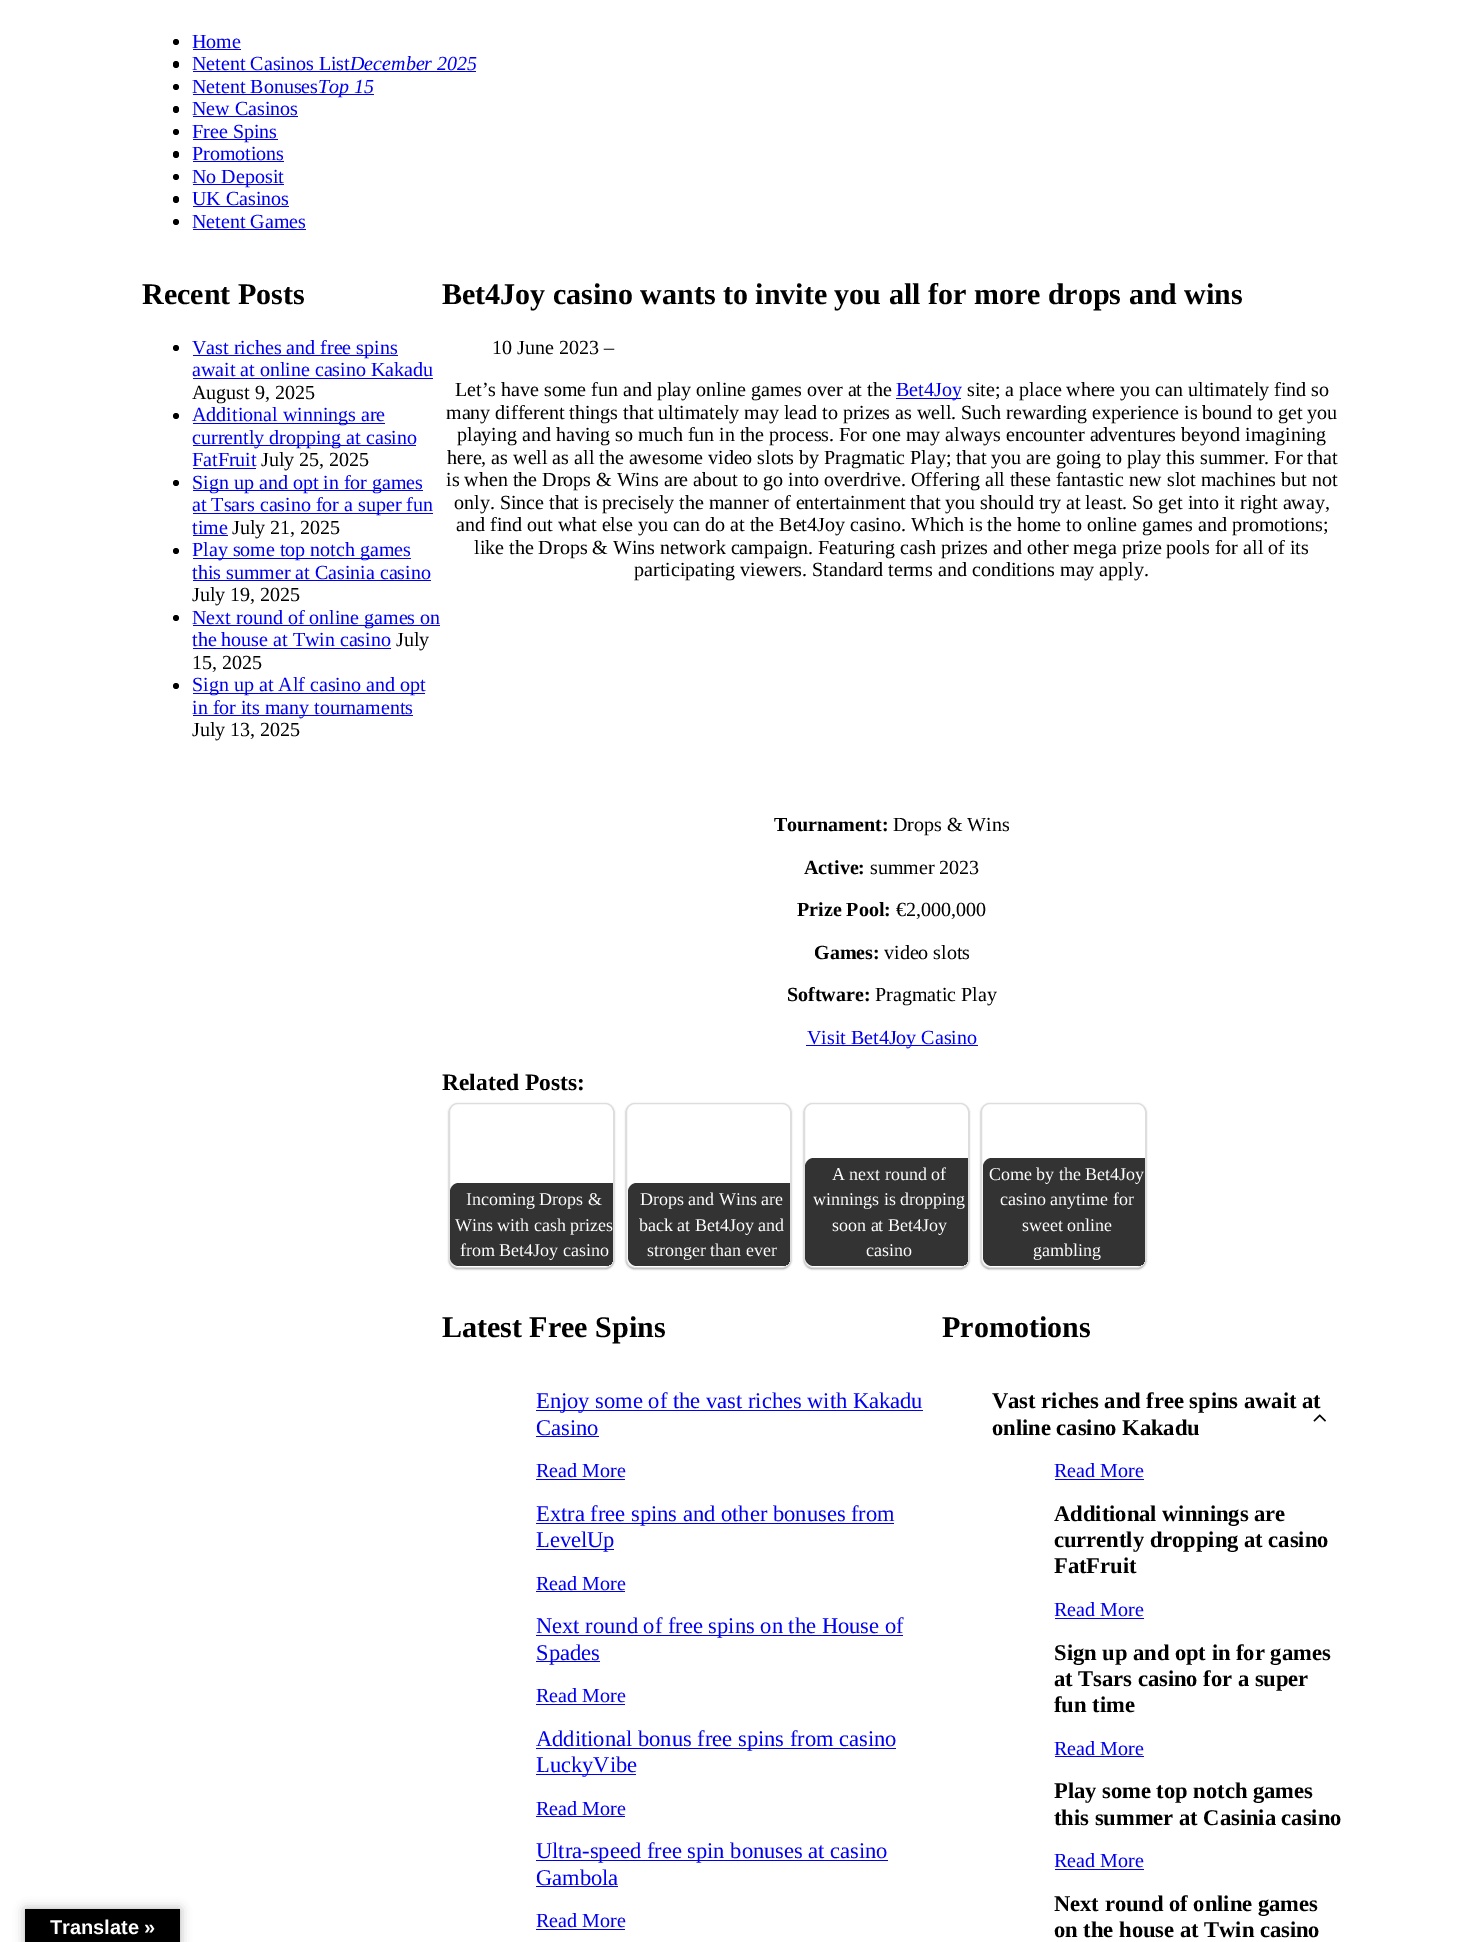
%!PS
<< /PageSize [1483 1942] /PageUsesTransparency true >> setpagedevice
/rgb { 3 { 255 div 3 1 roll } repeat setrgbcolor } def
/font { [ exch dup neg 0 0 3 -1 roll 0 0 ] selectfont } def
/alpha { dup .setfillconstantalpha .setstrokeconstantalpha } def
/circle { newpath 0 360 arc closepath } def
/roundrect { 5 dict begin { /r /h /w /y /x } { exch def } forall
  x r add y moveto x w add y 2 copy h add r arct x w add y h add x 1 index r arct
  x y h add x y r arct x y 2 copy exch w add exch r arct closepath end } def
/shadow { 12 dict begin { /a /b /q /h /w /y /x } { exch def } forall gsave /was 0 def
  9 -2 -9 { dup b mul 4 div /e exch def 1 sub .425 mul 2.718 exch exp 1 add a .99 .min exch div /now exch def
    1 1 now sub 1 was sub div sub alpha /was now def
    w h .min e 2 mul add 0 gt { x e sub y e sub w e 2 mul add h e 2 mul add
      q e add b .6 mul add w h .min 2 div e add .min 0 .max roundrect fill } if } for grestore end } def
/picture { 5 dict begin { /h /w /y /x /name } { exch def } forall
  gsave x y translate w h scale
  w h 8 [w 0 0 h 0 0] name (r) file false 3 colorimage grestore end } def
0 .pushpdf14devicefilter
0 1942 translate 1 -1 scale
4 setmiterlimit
255 255 255 rgb
0 0 1483 1942 rectfill
0 0 0 rgb
25 1909 155 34 0 5.5 0.3 shadow
25 1909 155 33 rectfill
176 42 3 circle fill
0 0 238 rgb
193 49 48 1 rectfill
0 0 0 rgb
173 61 6 7 3 roundrect fill
0 0 238 rgb
193 71 283 1 rectfill
0 0 0 rgb
176 87 3 circle fill
0 0 238 rgb
193 94 181 1 rectfill
0 0 0 rgb
173 106 6 7 3 roundrect fill
0 0 238 rgb
193 116 105 1 rectfill
0 0 0 rgb
176 132 3 circle fill
0 0 238 rgb
193 139 85 1 rectfill
0 0 0 rgb
173 151 6 7 3 roundrect fill
0 0 238 rgb
193 161 91 1 rectfill
0 0 0 rgb
176 177 3 circle fill
0 0 238 rgb
193 184 91 1 rectfill
0 0 0 rgb
173 196 6 7 3 roundrect fill
0 0 238 rgb
193 206 96 1 rectfill
0 0 0 rgb
176 222 3 circle fill
0 0 238 rgb
193 229 113 1 rectfill
0 0 0 rgb
176 348 3 circle fill
0 0 238 rgb
193 355 205 1 rectfill
193 378 240 1 rectfill
0 0 0 rgb
176 416 3 circle fill
[
  [193 423 192 1 0 0 238]
  [193 445 223 1 0 0 238]
  [193 468 63 1 0 0 238]
] { aload pop rgb rectfill } forall
0 0 0 rgb
176 483 3 circle fill
[
  [193 490 230 1 0 0 238]
  [193 513 240 1 0 0 238]
  [193 535 35 1 0 0 238]
] { aload pop rgb rectfill } forall
0 0 0 rgb
176 551 3 circle fill
0 0 238 rgb
193 558 218 1 rectfill
193 580 238 1 rectfill
0 0 0 rgb
176 618 3 circle fill
0 0 238 rgb
193 625 247 1 rectfill
193 648 198 1 rectfill
0 0 0 rgb
176 686 3 circle fill
[
  [193 693 232 1 0 0 238]
  [193 715 220 1 0 0 238]
  [896 398 65 1 0 0 238]
  [806 1045 172 1 0 0 238]
] { aload pop rgb rectfill } forall
gsave
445 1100 moveto 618 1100 lineto 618 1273 lineto 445 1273 lineto closepath 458 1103 moveto 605 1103 lineto 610 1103 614 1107 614 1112 curveto 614 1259 lineto 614 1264 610 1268 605 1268 curveto 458 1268 lineto 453 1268 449 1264 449 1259 curveto 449 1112 lineto 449 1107 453 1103 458 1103 curveto closepath eoclip newpath
0 0 0 rgb
449 1104 165 165 9 1 0.4 shadow
grestore
221 221 221 rgb
449.5 1103.5 164 164 8.5 roundrect stroke
gsave
450 1104 163 162 8 roundrect clip newpath
0.8 alpha
0 0 0 rgb
450 1183 170 83 9 roundrect fill
grestore
gsave
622 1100 moveto 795 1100 lineto 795 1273 lineto 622 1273 lineto closepath 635 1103 moveto 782 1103 lineto 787 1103 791 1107 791 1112 curveto 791 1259 lineto 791 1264 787 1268 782 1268 curveto 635 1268 lineto 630 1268 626 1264 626 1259 curveto 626 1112 lineto 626 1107 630 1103 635 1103 curveto closepath eoclip newpath
0 0 0 rgb
626 1104 165 165 9 1 0.4 shadow
grestore
626.5 1103.5 164 164 8.5 roundrect stroke
gsave
628 1104 162 162 8 roundrect clip newpath
0.8 alpha
0 0 0 rgb
628 1183 170 83 9 roundrect fill
grestore
gsave
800 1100 moveto 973 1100 lineto 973 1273 lineto 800 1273 lineto closepath 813 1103 moveto 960 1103 lineto 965 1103 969 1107 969 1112 curveto 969 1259 lineto 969 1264 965 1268 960 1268 curveto 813 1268 lineto 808 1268 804 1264 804 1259 curveto 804 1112 lineto 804 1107 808 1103 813 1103 curveto closepath eoclip newpath
0 0 0 rgb
804 1104 165 165 9 1 0.4 shadow
grestore
804.5 1103.5 164 164 8.5 roundrect stroke
gsave
805 1104 163 162 8 roundrect clip newpath
0.8 alpha
0 0 0 rgb
805 1158 170 108 9 roundrect fill
grestore
gsave
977 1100 moveto 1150 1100 lineto 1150 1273 lineto 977 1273 lineto closepath 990 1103 moveto 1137 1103 lineto 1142 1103 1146 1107 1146 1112 curveto 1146 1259 lineto 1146 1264 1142 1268 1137 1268 curveto 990 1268 lineto 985 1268 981 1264 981 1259 curveto 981 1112 lineto 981 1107 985 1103 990 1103 curveto closepath eoclip newpath
0 0 0 rgb
981 1104 165 165 9 1 0.4 shadow
grestore
981.5 1103.5 164 164 8.5 roundrect stroke
gsave
983 1104 162 162 8 roundrect clip newpath
0.8 alpha
0 0 0 rgb
983 1158 170 108 9 roundrect fill
grestore
[
  [536 1410 387 1 0 0 238]
  [536 1436 63 1 0 0 238]
  [536 1479 89 1 0 0 238]
  [536 1523 358 1 0 0 238]
  [536 1549 78 1 0 0 238]
  [536 1591 89 1 0 0 238]
  [536 1635 367 1 0 0 238]
  [536 1661 64 1 0 0 238]
  [536 1704 89 1 0 0 238]
  [536 1748 360 1 0 0 238]
  [536 1774 100 1 0 0 238]
  [536 1816 89 1 0 0 238]
  [536 1860 352 1 0 0 238]
  [536 1886 82 1 0 0 238]
  [536 1929 89 1 0 0 238]
] { aload pop rgb rectfill } forall
(img/1.rgb) 1313 1414 13 8 picture
[
  [1055 1479 89 1 0 0 238]
  [1055 1618 89 1 0 0 238]
  [1055 1756 89 1 0 0 238]
  [1055 1869 89 1 0 0 238]
] { aload pop rgb rectfill } forall
/LiberationSans-Bold 20 font
255 255 255 rgb
50 1934 moveto (Translate ») show
/LiberationSerif-Regular 20 font
0 0 238 rgb
192 48 moveto (Home) show
192 70 moveto (Netent Casinos List) show
/LiberationSerif-Italic 20 font
350 70 moveto (December 2025) show
/LiberationSerif-Regular 20 font
192 93 moveto (Netent Bonuses) show
/LiberationSerif-Italic 20 font
318 93 moveto (Top 15) show
/LiberationSerif-Regular 20 font
[
  [(New Casinos) 192 115]
  [(Free Spins) 192 138]
  [(Promotions) 192 160]
  [(No Deposit) 192 183]
  [(UK Casinos) 192 205]
  [(Netent Games) 192 228]
] { aload pop moveto show } forall
/LiberationSerif-Bold 30 font
0 0 0 rgb
142 304 moveto (Recent Posts) show
/LiberationSerif-Regular 20 font
0 0 238 rgb
192 354 moveto (Vast riches and free spins) show
192 376 moveto (await at online casino Kakadu) show
0 0 0 rgb
192 399 moveto (August 9, 2025) show
0 0 238 rgb
[
  [(Additional winnings are) 192 421]
  [(currently dropping at casino) 192 444]
  [(FatFruit) 192 466]
] { aload pop moveto show } forall
0 0 0 rgb
261 466 moveto (July 25, 2025) show
0 0 238 rgb
[
  [(Sign up and opt in for games) 192 489]
  [(at Tsars casino for a super fun) 192 511]
  [(time) 192 534]
] { aload pop moveto show } forall
0 0 0 rgb
232 534 moveto (July 21, 2025) show
0 0 238 rgb
192 556 moveto (Play some top notch games) show
192 579 moveto (this summer at Casinia casino) show
0 0 0 rgb
192 601 moveto (July 19, 2025) show
0 0 238 rgb
192 624 moveto (Next round of online games on) show
192 646 moveto (the house at Twin casino) show
0 0 0 rgb
396 646 moveto (July) show
192 669 moveto (15, 2025) show
0 0 238 rgb
192 691 moveto (Sign up at Alf casino and opt) show
192 714 moveto (in for its many tournaments) show
0 0 0 rgb
192 736 moveto (July 13, 2025) show
/LiberationSerif-Bold 30 font
442 304 moveto (Bet4Joy casino wants to invite you all for more drops and wins) show
/LiberationSerif-Regular 20 font
492 354 moveto (10 June 2023 –) show
455 396 moveto (Let’s have some fun and play online games over at the) show
0 0 238 rgb
896 396 moveto (Bet4Joy) show
0 0 0 rgb
[
  [(site; a place where you can ultimately find so) 967 396]
  [(many different things that ultimately may lead to prizes as well. Such rewarding experience is bound to get you) 446 419]
  [(playing and having so much fun in the process. For one may always encounter adventures beyond imagining) 457 441]
  [(here, as well as all the awesome video slots by Pragmatic Play; that you are going to play this summer. For that) 447 464]
  [(is when the Drops & Wins are about to go into overdrive. Offering all these fantastic new slot machines but not) 446 486]
  [(only. Since that is precisely the manner of entertainment that you should try at least. So get into it right away,) 454 509]
  [(and find out what else you can do at the Bet4Joy casino. Which is the home to online games and promotions;) 456 531]
  [(like the Drops & Wins network campaign. Featuring cash prizes and other mega prize pools for all of its) 474 554]
  [(participating viewers. Standard terms and conditions may apply.) 634 576]
] { aload pop moveto show } forall
/LiberationSerif-Bold 20 font
774 831 moveto (Tournament:) show
/LiberationSerif-Regular 20 font
893 831 moveto (Drops & Wins) show
/LiberationSerif-Bold 20 font
804 874 moveto (Active:) show
/LiberationSerif-Regular 20 font
870 874 moveto (summer 2023) show
/LiberationSerif-Bold 20 font
797 916 moveto (Prize Pool:) show
/LiberationSerif-Regular 20 font
896 916 moveto (€2,000,000) show
/LiberationSerif-Bold 20 font
814 959 moveto (Games:) show
/LiberationSerif-Regular 20 font
884 959 moveto (video slots) show
/LiberationSerif-Bold 20 font
787 1001 moveto (Software:) show
/LiberationSerif-Regular 20 font
875 1001 moveto (Pragmatic Play) show
0 0 238 rgb
807 1044 moveto (Visit Bet4Joy Casino) show
/LiberationSerif-Bold 23.5 font
0 0 0 rgb
442 1090 moveto (Related Posts:) show
/LiberationSerif-Regular 18 font
255 255 255 rgb
[
  [(Incoming Drops &) 466 1205]
  [(Wins with cash prizes) 455 1231]
  [(from Bet4Joy casino) 460 1256]
  [(Drops and Wins are) 640 1205]
  [(back at Bet4Joy and) 639 1231]
  [(stronger than ever) 647 1256]
  [(A next round of) 832 1180]
  [(winnings is dropping) 813 1205]
  [(soon at Bet4Joy) 832 1231]
  [(casino) 866 1256]
  [(Come by the Bet4Joy) 989 1180]
  [(casino anytime for) 1000 1205]
  [(sweet online) 1022 1231]
  [(gambling) 1033 1256]
] { aload pop moveto show } forall
/LiberationSerif-Bold 30 font
0 0 0 rgb
442 1337 moveto (Latest Free Spins) show
/LiberationSerif-Regular 22.5 font
0 0 238 rgb
536 1408 moveto (Enjoy some of the vast riches with Kakadu) show
536 1435 moveto (Casino) show
/LiberationSerif-Regular 20 font
536 1477 moveto (Read More) show
/LiberationSerif-Regular 22.5 font
536 1521 moveto (Extra free spins and other bonuses from) show
536 1547 moveto (LevelUp) show
/LiberationSerif-Regular 20 font
536 1590 moveto (Read More) show
/LiberationSerif-Regular 22.5 font
536 1633 moveto (Next round of free spins on the House of) show
536 1660 moveto (Spades) show
/LiberationSerif-Regular 20 font
536 1702 moveto (Read More) show
/LiberationSerif-Regular 22.5 font
536 1746 moveto (Additional bonus free spins from casino) show
536 1772 moveto (LuckyVibe) show
/LiberationSerif-Regular 20 font
536 1815 moveto (Read More) show
/LiberationSerif-Regular 22.5 font
536 1858 moveto (Ultra-speed free spin bonuses at casino) show
536 1885 moveto (Gambola) show
/LiberationSerif-Regular 20 font
536 1927 moveto (Read More) show
/LiberationSerif-Bold 30 font
0 0 0 rgb
942 1337 moveto (Promotions) show
/LiberationSerif-Bold 22.5 font
992 1408 moveto (Vast riches and free spins await at) show
992 1435 moveto (online casino Kakadu) show
/LiberationSerif-Regular 20 font
0 0 238 rgb
1054 1477 moveto (Read More) show
/LiberationSerif-Bold 22.5 font
0 0 0 rgb
[
  [(Additional winnings are) 1054 1521]
  [(currently dropping at casino) 1054 1547]
  [(FatFruit) 1054 1573]
] { aload pop moveto show } forall
/LiberationSerif-Regular 20 font
0 0 238 rgb
1054 1616 moveto (Read More) show
/LiberationSerif-Bold 22.5 font
0 0 0 rgb
[
  [(Sign up and opt in for games) 1054 1660]
  [(at Tsars casino for a super) 1054 1686]
  [(fun time) 1054 1712]
] { aload pop moveto show } forall
/LiberationSerif-Regular 20 font
0 0 238 rgb
1054 1755 moveto (Read More) show
/LiberationSerif-Bold 22.5 font
0 0 0 rgb
1054 1798 moveto (Play some top notch games) show
1054 1825 moveto (this summer at Casinia casino) show
/LiberationSerif-Regular 20 font
0 0 238 rgb
1054 1867 moveto (Read More) show
/LiberationSerif-Bold 22.5 font
0 0 0 rgb
1054 1911 moveto (Next round of online games) show
1054 1937 moveto (on the house at Twin casino) show
.poppdf14devicefilter showpage
